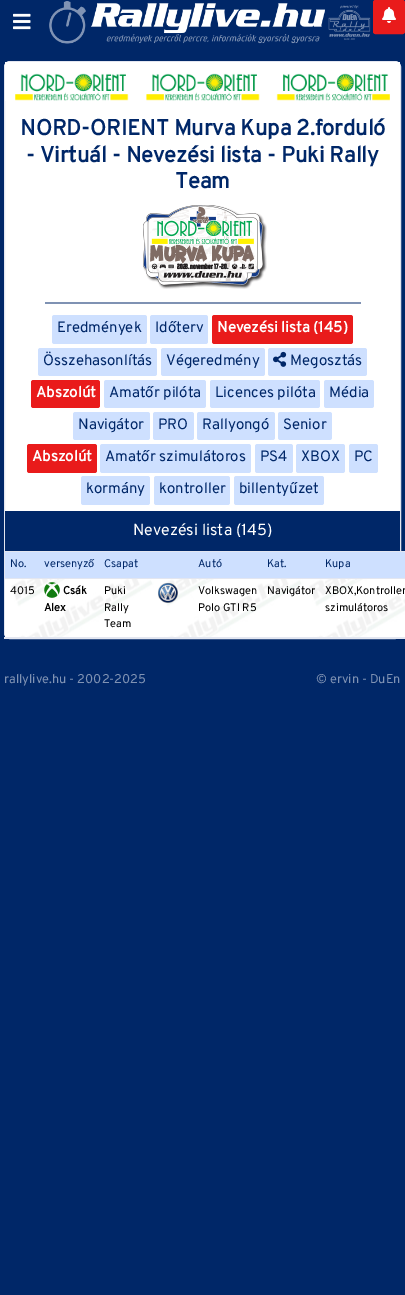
%!PS
<< /PageSize [405 1295] >> setpagedevice
/rgb { 3 { 255 div 3 1 roll } repeat setrgbcolor } def
/font { [ exch dup neg 0 0 3 -1 roll 0 0 ] selectfont } def
/roundrect { 5 dict begin { /r /h /w /y /x } { exch def } forall
  x r add y moveto x w add y 2 copy h add r arct x w add y h add x 1 index r arct
  x y h add x y r arct x y 2 copy exch w add exch r arct closepath end } def
/picture { 5 dict begin { /h /w /y /x /name } { exch def } forall
  gsave x y translate w h scale
  w h 8 [w 0 0 h 0 0] name (r) file false 3 colorimage grestore end } def
0 1295 translate 1 -1 scale
4 setmiterlimit
0 39 104 rgb
0 0 405 1295 rectfill
(img/1.rgb) 13 13 18 17 picture
(img/2.rgb) 49 1 322 43 picture
233 27 27 rgb
373.5 0.5 31 33 2 roundrect gsave fill grestore
stroke
(img/3.rgb) 382 7 14 16 picture
255 255 255 rgb
4.5 61.5 396 577 5.5 roundrect gsave fill grestore
227 230 240 rgb
stroke
(img/4.rgb) 5 62 395 39 picture
(img/5.rgb) 143 205 124 84 picture
127 146 179 rgb
45 302 316 2 rectfill
206 224 255 rgb
52 315 95 29 2.5 roundrect fill
150 315 58 29 2.5 roundrect fill
233 27 27 rgb
212 315 141 29 2.5 roundrect fill
206 224 255 rgb
38 348 119 28 2.5 roundrect fill
161 348 104 28 2.5 roundrect fill
268 348 99 28 2.5 roundrect fill
(img/6.rgb) 273 351 14 16 picture
233 27 27 rgb
31 380 69 28 2.5 roundrect fill
206 224 255 rgb
104 380 102 28 2.5 roundrect fill
210 380 110 28 2.5 roundrect fill
324 380 50 28 2.5 roundrect fill
73 412 77 28 2.5 roundrect fill
153 412 41 28 2.5 roundrect fill
197 412 78 28 2.5 roundrect fill
278 412 54 28 2.5 roundrect fill
233 27 27 rgb
27 444 70 29 2.5 roundrect fill
206 224 255 rgb
100 444 151 29 2.5 roundrect fill
255 444 38 29 2.5 roundrect fill
296 444 49 29 2.5 roundrect fill
349 444 29 29 2.5 roundrect fill
81 476 69 29 2.5 roundrect fill
154 476 76 29 2.5 roundrect fill
234 476 90 29 2.5 roundrect fill
0 39 104 rgb
5 511 395 40 rectfill
(img/7.rgb) 5 578 400 59 picture
206 224 255 rgb
5 552 400 26 rectfill
227 230 240 rgb
5 551 400 1 rectfill
(img/8.rgb) 44 582 16 16 picture
(img/9.rgb) 158 583 20 20 picture
4 637 401 2 rectfill
/Overpass-Bold 22 font
0 39 104 rgb
[
  [(NORD-ORIENT Murva Kupa 2.forduló) 20 135]
  [(- Virtuál - Nevezési lista - Puki Rally) 26 162]
  [(Team) 175 188]
] { aload pop moveto show } forall
/Overpass-Regular 15 font
57 332 moveto (Eredmények) show
155 332 moveto (Időterv) show
/Overpass-Bold 15 font
255 255 255 rgb
217 332 moveto (Nevezési lista \(145\)) show
/Overpass-Regular 15 font
0 39 104 rgb
[
  [(Összehasonlítás) 43 365]
  [(Végeredmény) 166 365]
  [(Megosztás) 290 365]
] { aload pop moveto show } forall
/Overpass-Bold 15 font
255 255 255 rgb
36 397 moveto (Abszolút) show
/Overpass-Regular 15 font
0 39 104 rgb
[
  [(Amatőr pilóta) 109 397]
  [(Licences pilóta) 215 397]
  [(Média) 329 397]
  [(Navigátor) 78 429]
  [(PRO) 158 429]
  [(Rallyongó) 202 429]
  [(Senior) 283 429]
] { aload pop moveto show } forall
/Overpass-Bold 15 font
255 255 255 rgb
32 461 moveto (Abszolút) show
/Overpass-Regular 15 font
0 39 104 rgb
[
  [(Amatőr szimulátoros) 105 461]
  [(PS4) 260 461]
  [(XBOX) 301 461]
  [(PC) 354 461]
  [(kormány) 86 493]
  [(kontroller) 159 493]
  [(billentyűzet) 239 493]
] { aload pop moveto show } forall
/Overpass-Regular 16 font
255 255 255 rgb
133 535 moveto (Nevezési lista \(145\)) show
/Overpass-Regular 11 font
0 39 104 rgb
[
  [(No.) 10 567]
  [(versenyző) 44 567]
  [(Csapat) 104 567]
  [(Autó) 198 567]
  [(Kat.) 267 567]
  [(Kupa) 325 567]
] { aload pop moveto show } forall
0 0 0 rgb
10 594 moveto (4015) show
/Overpass-Bold 11 font
63 594 moveto (Csák) show
44 611 moveto (Alex) show
/Overpass-Regular 11 font
[
  [(Puki) 104 594]
  [(Rally) 104 611]
  [(Team) 104 627]
  [(Volkswagen) 198 594]
  [(Polo GTI R5) 198 611]
  [(Navigátor) 267 594]
  [(XBOX,Kontroller) 325 594]
  [(szimulátoros) 325 611]
] { aload pop moveto show } forall
/Overpass-Regular 12.75 font
128 147 180 rgb
4 683 moveto (rallylive.hu - 2002-2025) show
316 683 moveto (© ervin - DuEn) show
showpage
